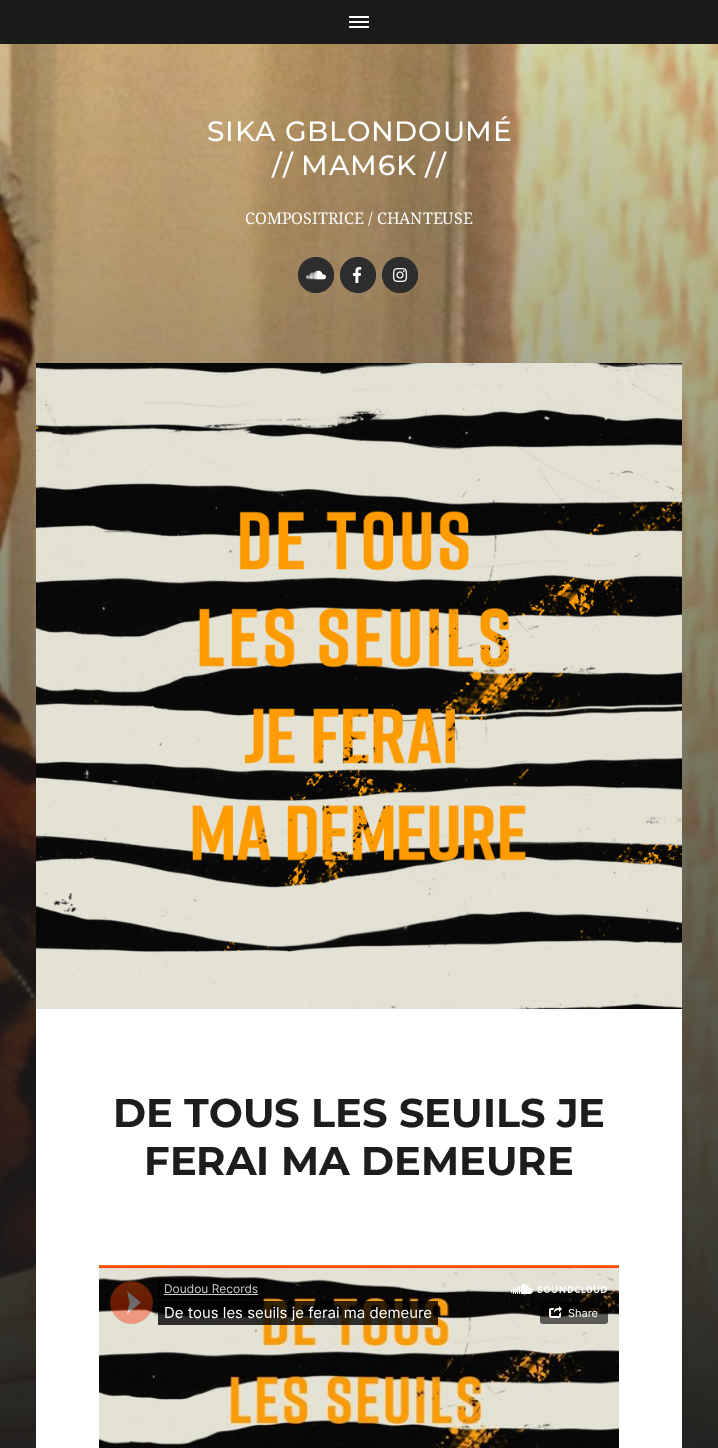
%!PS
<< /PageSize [718 1448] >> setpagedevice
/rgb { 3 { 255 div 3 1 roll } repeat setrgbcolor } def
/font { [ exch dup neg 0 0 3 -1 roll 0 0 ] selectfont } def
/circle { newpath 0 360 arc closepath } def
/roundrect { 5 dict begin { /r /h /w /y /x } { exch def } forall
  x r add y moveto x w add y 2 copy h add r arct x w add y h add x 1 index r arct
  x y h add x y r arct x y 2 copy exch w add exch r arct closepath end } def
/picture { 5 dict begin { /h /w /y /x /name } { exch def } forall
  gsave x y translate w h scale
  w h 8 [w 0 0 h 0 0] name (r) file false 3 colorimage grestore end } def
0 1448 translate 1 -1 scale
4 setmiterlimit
29 29 29 rgb
0 0 718 1448 rectfill
26 26 26 rgb
0 0 718 44 3 roundrect fill
255 255 255 rgb
349 16 20 2 1 roundrect fill
349 21 20 2 1 roundrect fill
349 26 20 2 1 roundrect fill
(img/1.rgb) 0 44 718 1404 picture
45 45 45 rgb
316 275 18 circle fill
(img/2.rgb) 306 270 20 10 picture
358 275 18 circle fill
(img/3.rgb) 353 267 9 16 picture
400 275 18 circle fill
(img/4.rgb) 393 268 14 14 picture
255 255 255 rgb
36 1009 646 439 rectfill
(img/5.rgb) 36 363 646 646 picture
(img/6.rgb) 99 1265 520 183 picture
/Montserrat-Thin 28 font
207 141 moveto 0.75 0 (SIKA GBLONDOUMÉ) ashow
272 175 moveto 0.75 0 (// MAM6K //) ashow
/DroidSerif-Regular 16 font
245 224 moveto (COMPOSITRICE / CHANTEUSE) show
/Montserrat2-Thin 40 font
29 29 29 rgb
113 1127 moveto (DE TOUS LES SEUILS JE) show
144 1175 moveto (FERAI MA DEMEURE) show
showpage
